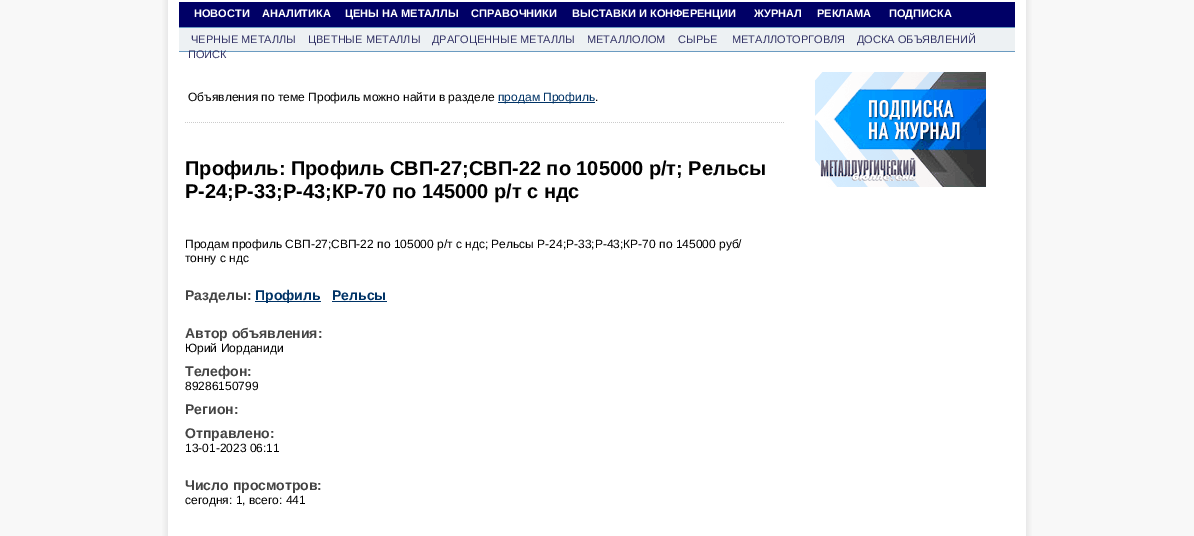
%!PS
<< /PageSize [1194 536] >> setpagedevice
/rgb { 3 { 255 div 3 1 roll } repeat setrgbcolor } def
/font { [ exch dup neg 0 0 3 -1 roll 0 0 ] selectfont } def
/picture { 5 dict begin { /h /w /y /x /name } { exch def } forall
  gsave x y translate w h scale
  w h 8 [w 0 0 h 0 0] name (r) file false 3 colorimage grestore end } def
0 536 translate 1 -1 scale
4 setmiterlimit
248 248 248 rgb
0 0 1194 536 rectfill
255 255 255 rgb
168 0 858 536 rectfill
(img/1.rgb) 162 0 6 536 picture
[
  [179 2 836 25 0 0 102]
  [179 28 836 23 237 241 243]
  [179 27 836 1 107 155 193]
  [179 51 836 1 107 155 193]
  [498 102 97 1 0 51 102]
] { aload pop rgb rectfill } forall
(img/2.rgb) 185 122 599 1 picture
255 301 66 1 rectfill
332 301 55 1 rectfill
(img/3.rgb) 815 72 171 115 picture
(img/4.rgb) 1026 0 6 536 picture
/LiberationSans-Bold 11 font
255 255 255 rgb
[
  [(НОВОСТИ) 194 17]
  [(АНАЛИТИКА) 262 17]
  [(ЦЕНЫ НА МЕТАЛЛЫ) 345 17]
  [(СПРАВОЧНИКИ) 471 17]
  [(ВЫСТАВКИ И КОНФЕРЕНЦИИ) 572 17]
  [(ЖУРНАЛ) 754 17]
  [(РЕКЛАМА) 817 17]
  [(ПОДПИСКА) 889 17]
] { aload pop moveto show } forall
/LiberationSans-Regular 11 font
51 51 102 rgb
[
  [(ЧЕРНЫЕ МЕТАЛЛЫ) 191 43]
  [(ЦВЕТНЫЕ МЕТАЛЛЫ) 308 43]
  [(ДРАГОЦЕННЫЕ МЕТАЛЛЫ) 432 43]
  [(МЕТАЛЛОЛОМ) 587 43]
  [(СЫРЬЕ) 678 43]
  [(МЕТАЛЛОТОРГОВЛЯ) 732 43]
  [(ДОСКА ОБЪЯВЛЕНИЙ) 857 43]
  [(ПОИСК) 188 58]
] { aload pop moveto show } forall
/LiberationSans-Regular 12 font
0 0 0 rgb
188 101 moveto (Объявления по теме Профиль можно найти в разделе) show
0 51 102 rgb
498 101 moveto (продам Профиль) show
0 0 0 rgb
595 101 moveto (.) show
/LiberationSans-Bold 20 font
185 175 moveto (Профиль: Профиль СВП-27;СВП-22 по 105000 р/т; Рельсы) show
185 198 moveto (Р-24;Р-33;Р-43;КР-70 по 145000 р/т с ндс) show
/LiberationSans-Regular 12 font
185 248 moveto (Продам профиль СВП-27;СВП-22 по 105000 р/т с ндс; Рельсы Р-24;Р-33;Р-43;КР-70 по 145000 руб/) show
185 262 moveto (тонну с ндс) show
/LiberationSans-Bold 14 font
68 68 68 rgb
185 300 moveto (Разделы:) show
0 51 102 rgb
255 300 moveto (Профиль) show
332 300 moveto (Рельсы) show
68 68 68 rgb
185 338 moveto (Автор объявления:) show
/LiberationSans-Regular 12 font
0 0 0 rgb
185 352 moveto (Юрий Иорданиди) show
/LiberationSans-Bold 14 font
68 68 68 rgb
185 376 moveto (Телефон:) show
/LiberationSans-Regular 12 font
0 0 0 rgb
185 390 moveto (89286150799) show
/LiberationSans-Bold 14 font
68 68 68 rgb
185 414 moveto (Регион:) show
185 438 moveto (Отправлено:) show
/LiberationSans-Regular 12 font
0 0 0 rgb
185 452 moveto (13-01-2023 06:11) show
/LiberationSans-Bold 14 font
68 68 68 rgb
185 490 moveto (Число просмотров:) show
/LiberationSans-Regular 12 font
0 0 0 rgb
185 504 moveto (сегодня: 1, всего: 441) show
showpage
